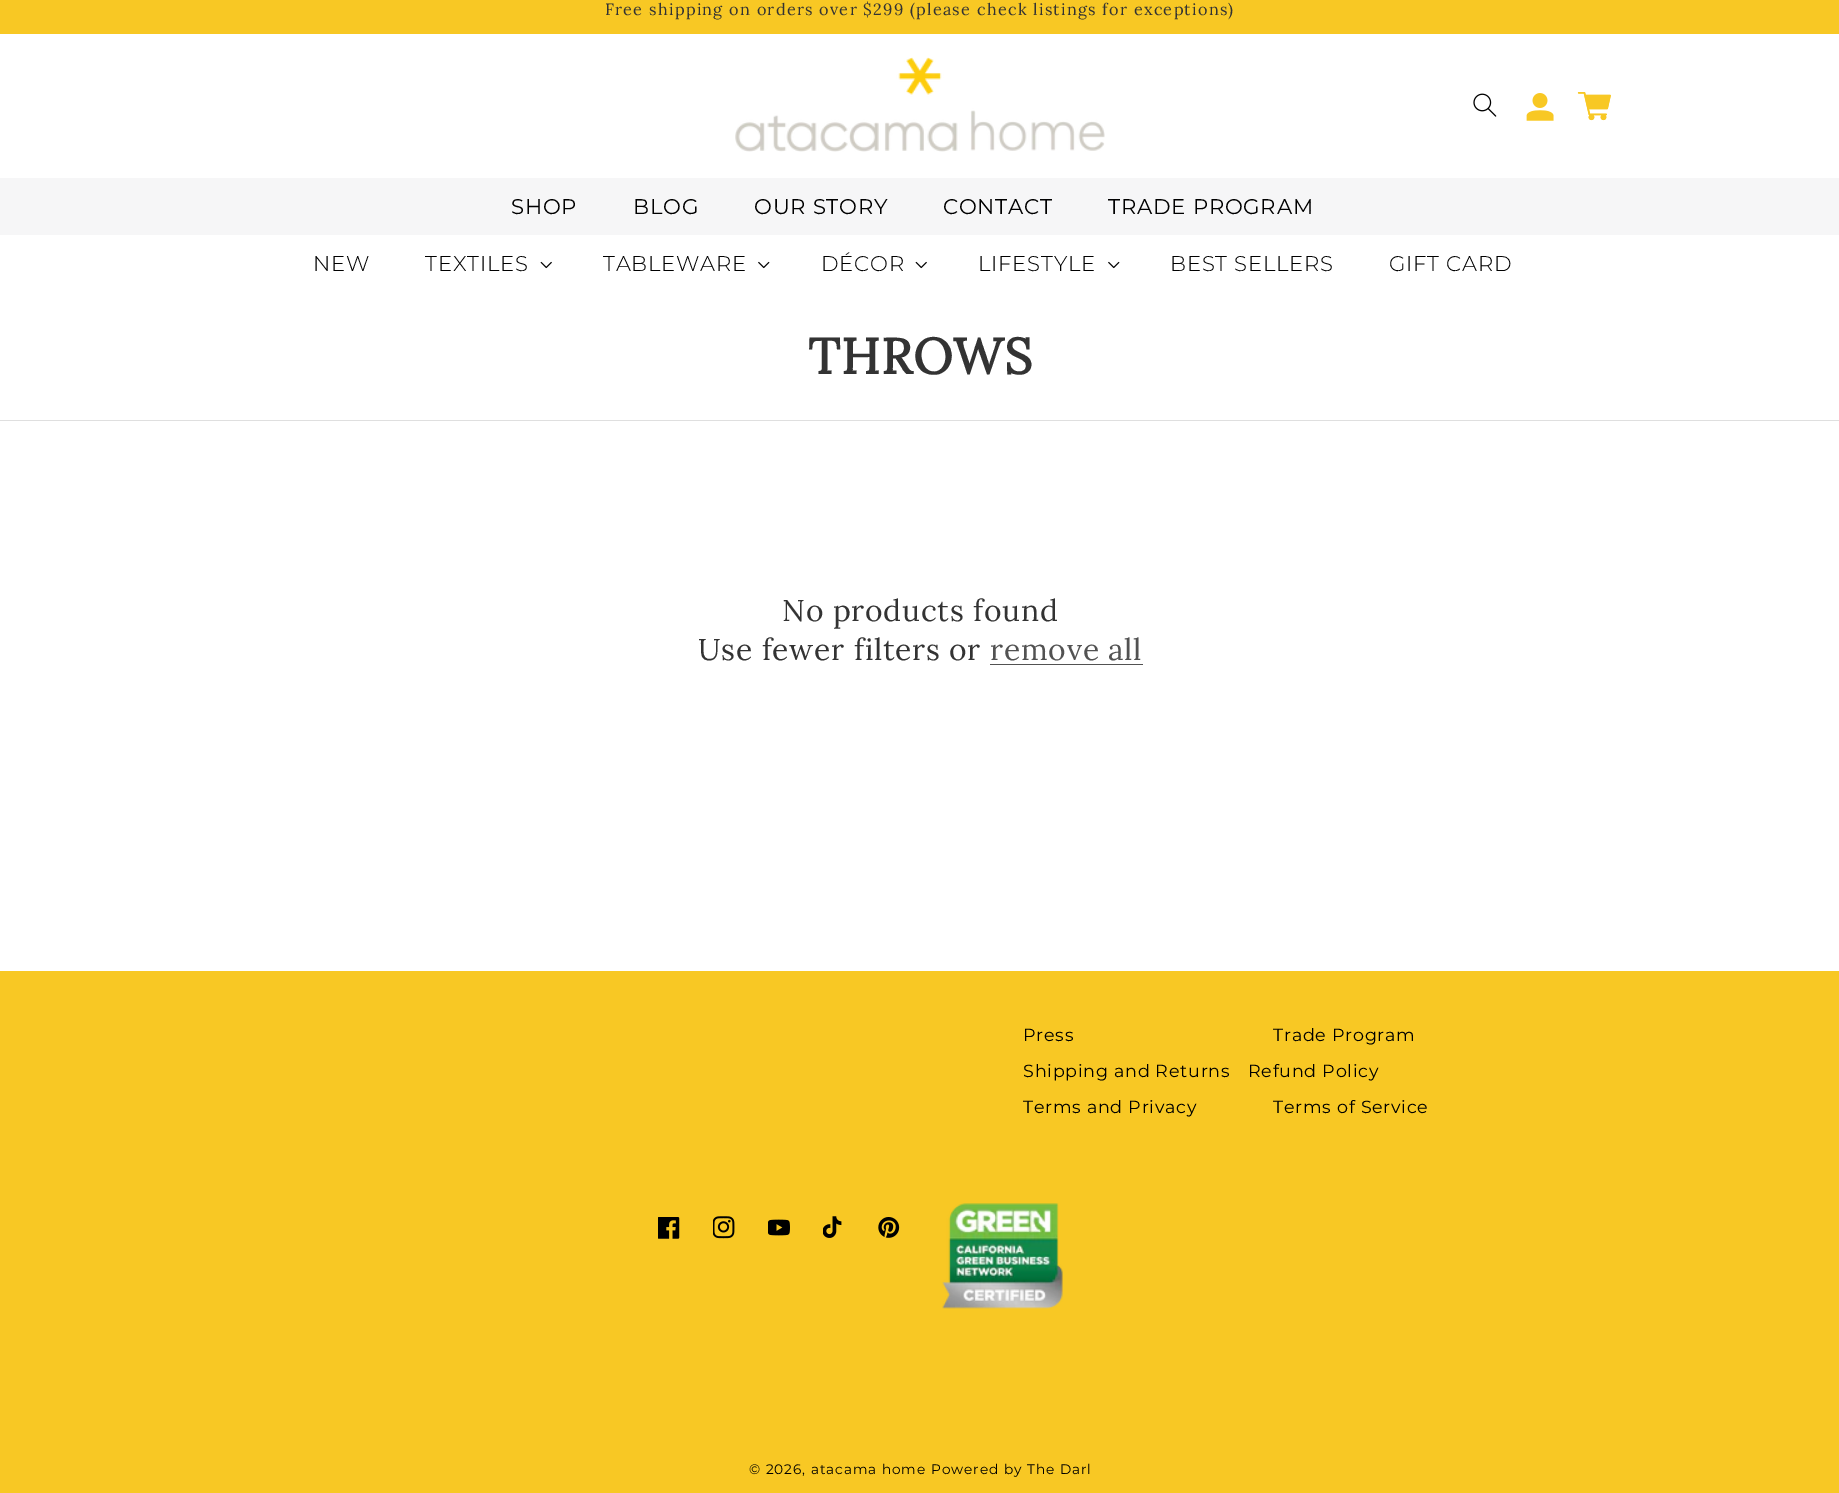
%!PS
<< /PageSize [1839 1493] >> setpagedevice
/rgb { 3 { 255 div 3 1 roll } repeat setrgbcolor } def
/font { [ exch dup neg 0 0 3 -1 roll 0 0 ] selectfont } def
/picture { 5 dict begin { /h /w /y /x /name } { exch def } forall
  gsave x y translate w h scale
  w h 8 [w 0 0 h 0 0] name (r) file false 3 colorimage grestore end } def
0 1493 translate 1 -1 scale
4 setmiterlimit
255 255 255 rgb
0 0 1839 1493 rectfill
248 200 36 rgb
0 0 1839 34 rectfill
(img/1.rgb) 735 57 370 95 picture
(img/2.rgb) 1473 93 24 24 picture
(img/3.rgb) 1526 93 28 28 picture
(img/4.rgb) 1577 92 34 29 picture
246 246 247 rgb
0 178 1839 57 rectfill
(img/5.rgb) 540 261 12 8 picture
(img/6.rgb) 758 261 12 8 picture
(img/5.rgb) 915 261 12 8 picture
(img/6.rgb) 1108 261 12 8 picture
[
  [0 420 1839 1 223 223 223]
  [990 664 153 1 82 82 82]
  [0 971 1839 522 248 200 36]
] { aload pop rgb rectfill } forall
(img/7.rgb) 658 1217 22 22 picture
(img/8.rgb) 713 1216 22 23 picture
(img/9.rgb) 768 1219 22 17 picture
(img/10.rgb) 823 1216 19 22 picture
(img/11.rgb) 878 1217 22 21 picture
(img/12.rgb) 942 1203 121 106 picture
/Lora-Regular 16.25 font
51 51 51 rgb
605 15 moveto 1.25 0 (Free shipping on orders over $299 \(please check listings for exceptions\)) ashow
/Montserrat-Regular 21.25 font
0 0 0 rgb
511 214 moveto 0.75 0 (SHOP) ashow
633 214 moveto 0.75 0 (BLOG) ashow
754 214 moveto 0.75 0 (OUR STORY) ashow
943 214 moveto 0.75 0 (CONTACT) ashow
1108 214 moveto 0.75 0 (TRADE PROGRAM) ashow
/Montserrat-Light 21.25 font
313 271 moveto 0.75 0 (NEW) ashow
425 271 moveto 0.75 0 (TEXTILES) ashow
603 271 moveto 0.75 0 (TABLEWARE) ashow
821 271 moveto 0.75 0 (DÉCOR) ashow
978 271 moveto 0.75 0 (LIFESTYLE) ashow
1170 271 moveto 0.75 0 (BEST SELLERS) ashow
1389 271 moveto 0.75 0 (GIFT CARD) ashow
/Lora-Bold 50 font
51 51 51 rgb
808 374 moveto 0.75 0 (THROWS) ashow
/Lora-Regular 30 font
782 621 moveto 0.75 0 (No products found) ashow
698 660 moveto 0.75 0 (Use fewer filters or) ashow
82 82 82 rgb
990 660 moveto 0.75 0 (remove all) ashow
/Montserrat-Regular 17.5 font
0 0 0 rgb
1023 1041 moveto 0.75 0 (Press) ashow
1273 1041 moveto 0.75 0 (Trade Program) ashow
1023 1077 moveto 0.75 0 (Shipping and Returns) ashow
1248 1077 moveto 0.75 0 (Refund Policy) ashow
1023 1113 moveto 0.75 0 (Terms and Privacy) ashow
1273 1113 moveto 0.75 0 (Terms of Service) ashow
/Montserrat-Regular 13.75 font
749 1474 moveto 0.9 0 (© 2026, atacama home) ashow
931 1474 moveto 0.9 0 (Powered by The Darl) ashow
showpage
